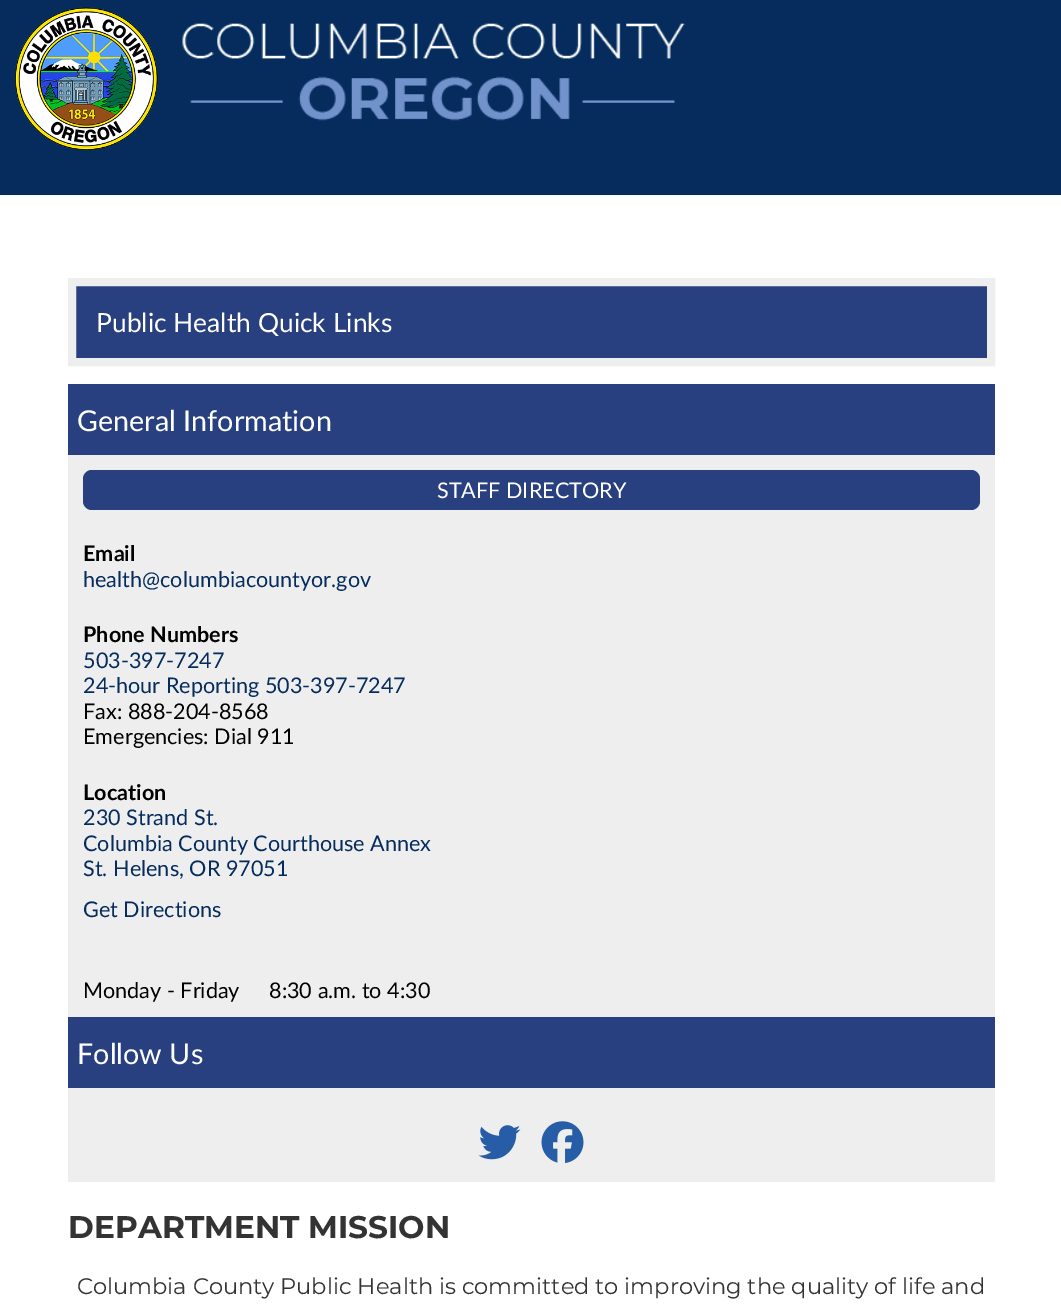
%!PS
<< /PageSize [1061 1315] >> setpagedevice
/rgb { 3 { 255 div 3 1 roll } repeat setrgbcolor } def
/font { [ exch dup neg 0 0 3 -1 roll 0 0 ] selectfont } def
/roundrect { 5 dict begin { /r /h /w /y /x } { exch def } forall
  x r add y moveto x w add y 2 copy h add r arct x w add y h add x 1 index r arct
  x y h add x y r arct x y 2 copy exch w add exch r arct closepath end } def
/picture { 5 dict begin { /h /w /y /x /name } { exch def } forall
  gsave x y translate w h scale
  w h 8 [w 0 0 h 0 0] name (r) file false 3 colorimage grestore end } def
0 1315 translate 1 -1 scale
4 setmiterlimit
255 255 255 rgb
0 0 1061 1315 rectfill
5 44 92 rgb
0 0 1061 195 rectfill
(img/1.rgb) 15 7 143 143 picture
(img/2.rgb) 182 23 503 98 picture
41 64 128 rgb
72 282 moveto 991 282 lineto 991 362 lineto 72 362 lineto closepath gsave fill grestore
238 238 238 rgb
8 setlinewidth
stroke
41 64 128 rgb
68 384 927 71 rectfill
238 238 238 rgb
68 455 927 562 rectfill
41 64 128 rgb
83 470 897 40 9 roundrect fill
68 1017 927 71 rectfill
238 238 238 rgb
68 1088 927 94 rectfill
(img/3.rgb) 478 1125 43 35 picture
(img/4.rgb) 541 1121 43 42 picture
/Lato-Regular 26.4 font
255 255 255 rgb
96 332 moveto (Public Health Quick Links) show
/Lato-Regular 28.75 font
77 431 moveto (General Information) show
/Lato-Regular 21.6 font
437 498 moveto (STAFF DIRECTORY) show
/Lato-Bold 21.6 font
0 0 0 rgb
83 561 moveto (Email) show
/Lato-Regular 21.6 font
5 44 92 rgb
83 587 moveto (health@columbiacountyor.gov) show
/Lato-Bold 21.6 font
0 0 0 rgb
83 642 moveto (Phone Numbers) show
/Lato-Regular 21.6 font
5 44 92 rgb
83 668 moveto (503-397-7247) show
83 693 moveto (24-hour Reporting 503-397-7247) show
0 0 0 rgb
83 719 moveto (Fax: 888-204-8568) show
83 744 moveto (Emergencies: Dial 911) show
/Lato-Bold 21.6 font
83 800 moveto (Location) show
/Lato-Regular 21.6 font
5 44 92 rgb
[
  [(230 Strand St.) 83 825]
  [(Columbia County Courthouse Annex) 83 851]
  [(St. Helens, OR 97051) 83 876]
  [(Get Directions) 83 917]
] { aload pop moveto show } forall
0 0 0 rgb
83 998 moveto (Monday - Friday) show
269 998 moveto (8:30 a.m. to 4:30) show
/Lato-Regular 28.75 font
255 255 255 rgb
77 1064 moveto (Follow Us) show
/Montserrat-Bold 31.25 font
51 51 51 rgb
68 1238 moveto (DEPARTMENT MISSION) show
/Montserrat-Regular 22.5 font
77 1294 moveto (Columbia County Public Health is committed to improving the quality of life and) show
showpage
